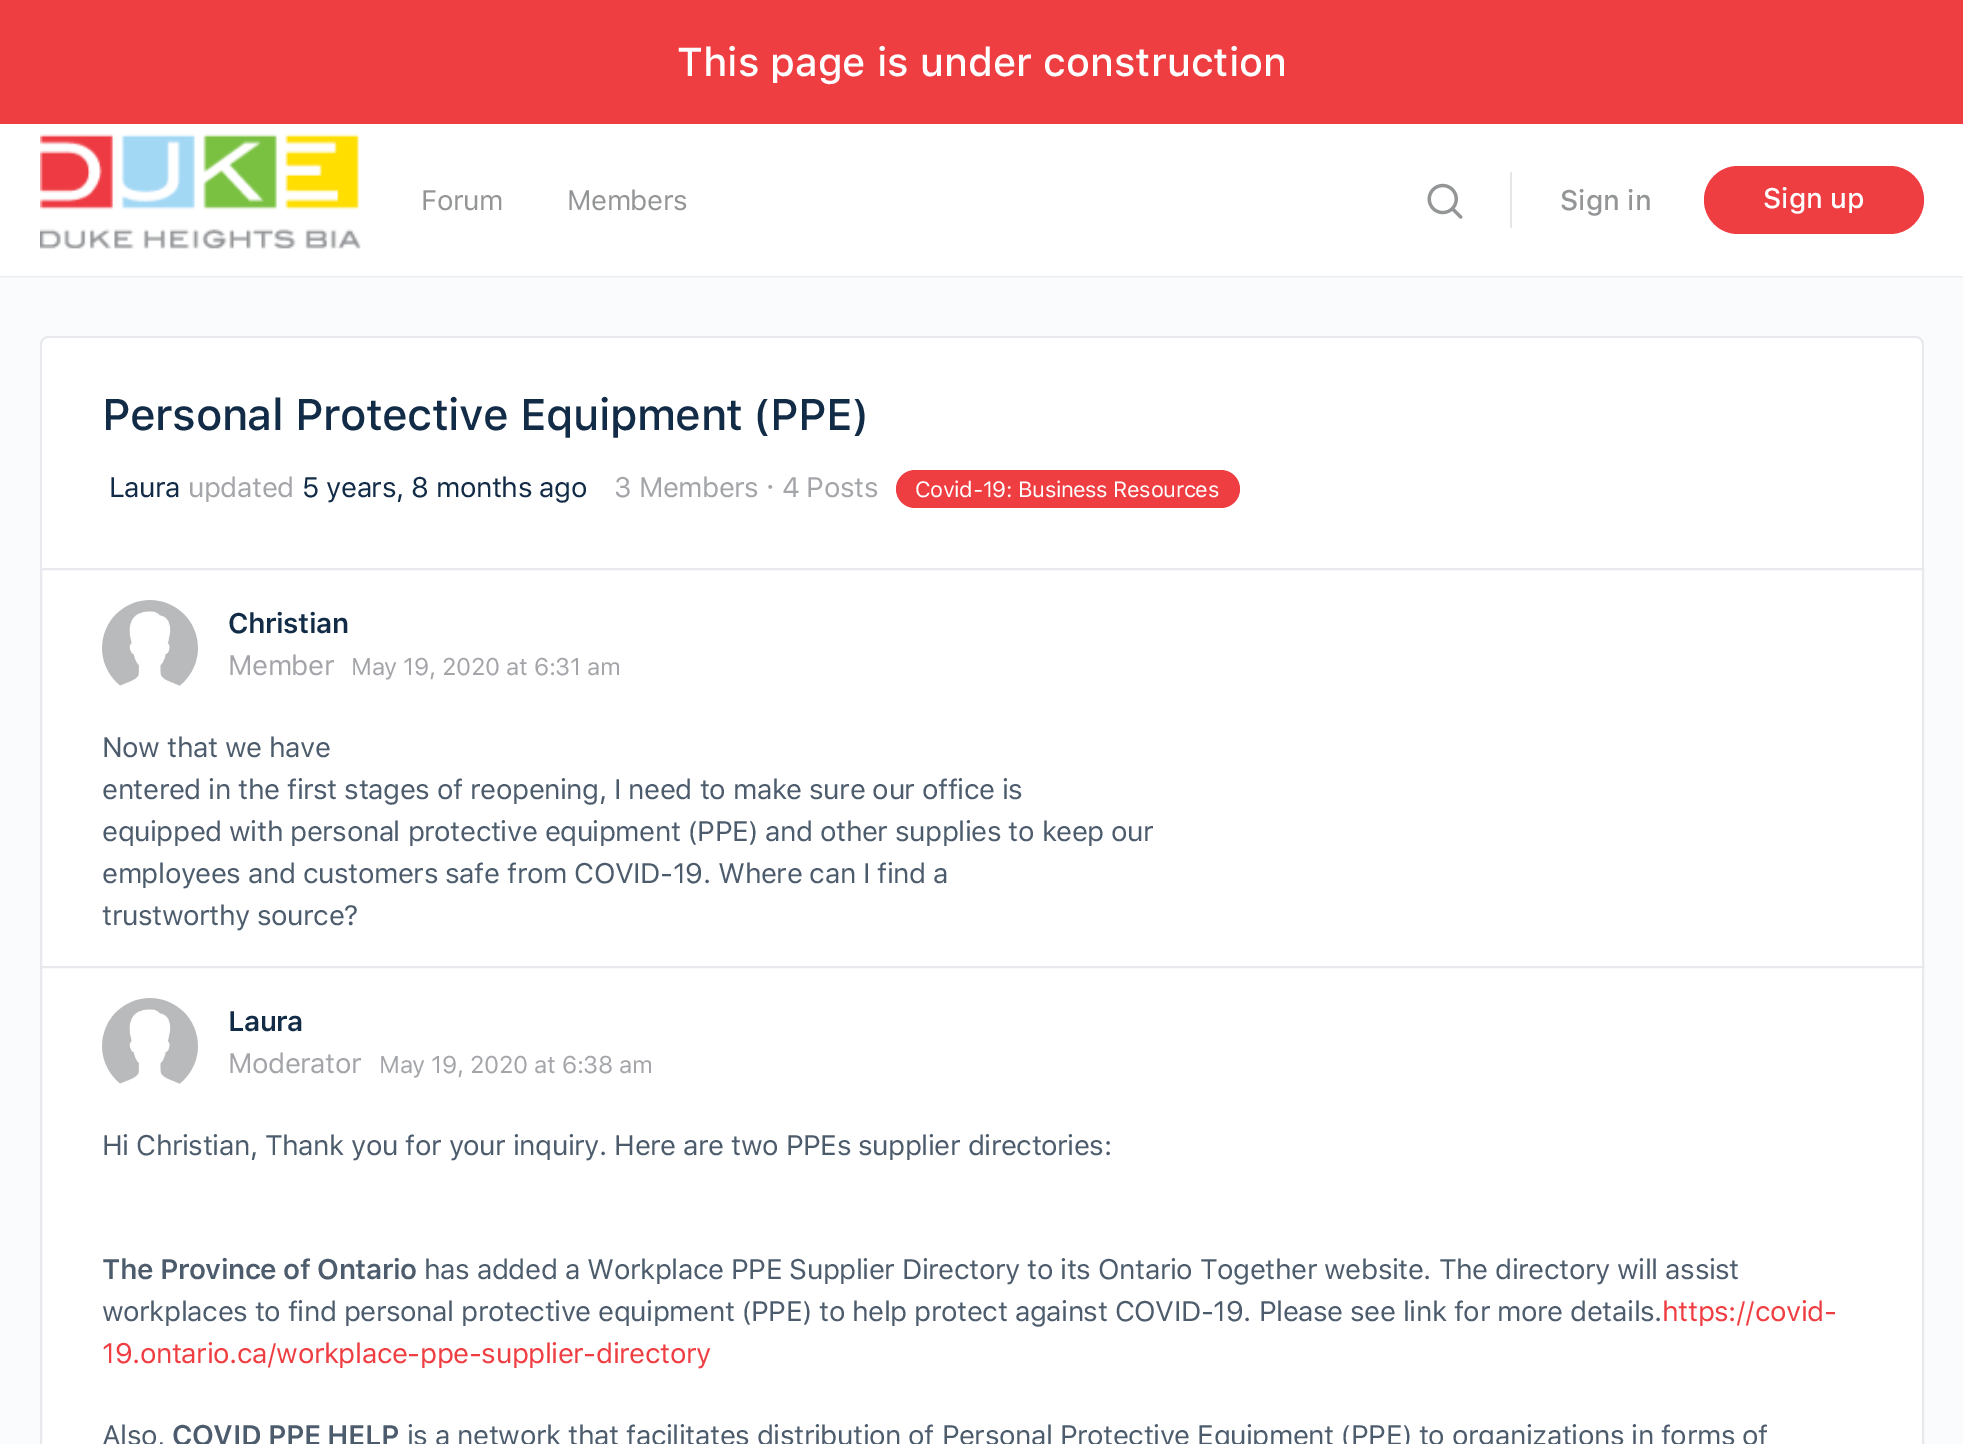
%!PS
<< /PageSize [1963 1444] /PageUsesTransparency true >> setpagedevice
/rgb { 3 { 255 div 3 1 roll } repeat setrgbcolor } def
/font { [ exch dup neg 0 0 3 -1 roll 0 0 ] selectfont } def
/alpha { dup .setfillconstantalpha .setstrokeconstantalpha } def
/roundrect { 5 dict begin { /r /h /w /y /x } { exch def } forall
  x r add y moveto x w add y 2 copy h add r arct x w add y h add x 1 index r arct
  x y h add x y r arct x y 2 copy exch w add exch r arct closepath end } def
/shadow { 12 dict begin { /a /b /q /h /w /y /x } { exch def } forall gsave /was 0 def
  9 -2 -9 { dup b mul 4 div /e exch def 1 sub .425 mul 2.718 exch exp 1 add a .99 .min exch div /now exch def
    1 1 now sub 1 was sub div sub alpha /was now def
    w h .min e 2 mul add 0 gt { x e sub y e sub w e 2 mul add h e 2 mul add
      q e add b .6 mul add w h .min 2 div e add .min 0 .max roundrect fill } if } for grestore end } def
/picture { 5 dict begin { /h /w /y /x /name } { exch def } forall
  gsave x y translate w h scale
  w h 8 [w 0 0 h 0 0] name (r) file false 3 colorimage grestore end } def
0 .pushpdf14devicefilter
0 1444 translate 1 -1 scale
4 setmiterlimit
250 251 253 rgb
0 0 1963 1444 rectfill
65 71 108 rgb
0 124 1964 152 0 1 0.15 shadow
[
  [0 0 1963 124 239 62 66]
] { aload pop rgb rectfill } forall
0.05 alpha
[
  [0 276 1963 2 139 141 157]
] { aload pop rgb rectfill } forall
1 alpha
[
  [0 124 1963 152 255 255 255]
] { aload pop rgb rectfill } forall
(img/1.rgb) 40 134 321 115 picture
(img/2.rgb) 1427 183 36 36 picture
230 230 230 rgb
1510 172 2 56 rectfill
239 62 66 rgb
1704 166 220 68 34 roundrect fill
255 255 255 rgb
48 336 moveto 1916 336 lineto 1920.5 336 1924 339.5 1924 344 curveto 1924 568 lineto 40 568 lineto 40 344 lineto 40 339.5 43.5 336 48 336 curveto closepath fill
231 233 236 rgb
48 336 moveto 1916 336 lineto 1920 336 1924 340 1924 344 curveto 1924 568 lineto 40 568 lineto 40 344 lineto 40 340 44 336 48 336 curveto closepath 48 338 moveto 1916 338 lineto 1919 338 1922 341 1922 344 curveto 1922 568 lineto 42 568 lineto 42 344 lineto 42 341 45 338 48 338 curveto closepath eofill
239 62 66 rgb
896 470 344 38 19 roundrect fill
255 255 255 rgb
41 569 moveto 1923 569 lineto 1923 967 lineto 41 967 lineto closepath gsave fill grestore
231 233 236 rgb
2 setlinewidth
stroke
(img/3.rgb) 102 600 96 86 picture
255 255 255 rgb
41 967 moveto 1923 967 lineto 1923 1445 lineto 41 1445 lineto closepath gsave fill grestore
231 233 236 rgb
stroke
(img/4.rgb) 102 998 96 86 picture
/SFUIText-Medium 40 font
255 255 255 rgb
677 76 moveto (This page is under construction) show
/SFUIText-Regular 28 font
147 149 151 rgb
421 210 moveto -0.48 0 (Forum) ashow
567 210 moveto -0.48 0 (Members) ashow
/SFUIText-Medium 28 font
1560 210 moveto (Sign in) show
255 255 255 rgb
1763 208 moveto (Sign up) show
/SFUIText-Medium 44 font
18 43 70 rgb
102 430 moveto -0.48 0 (Personal Protective Equipment \(PPE\)) ashow
/SFUIText-Regular 28 font
109 497 moveto -0.48 0 (Laura) ashow
163 165 169 rgb
188 497 moveto -0.48 0 (updated) ashow
18 43 70 rgb
302 497 moveto -0.48 0 (5 years, 8 months ago) ashow
163 165 169 rgb
614 497 moveto -0.48 0 (3 Members · 4 Posts) ashow
/SFUIText-Regular 22 font
255 255 255 rgb
915 497 moveto -0.4 0 (Covid-19: Business Resources) ashow
/SFUIText-SemiBold 28 font
18 43 70 rgb
228 633 moveto -0.48 0 (Christian) ashow
/SFUIText-Regular 28 font
163 165 169 rgb
228 675 moveto -0.48 0 (Member) ashow
/SFUIText-Regular 24 font
351 675 moveto -0.4 0 (May 19, 2020 at 6:31 am) ashow
/SFUIText-Regular 28 font
77 92 109 rgb
102 757 moveto -0.48 0 (Now that we have) ashow
102 799 moveto -0.48 0 (entered in the first stages of reopening, I need to make sure our office is) ashow
102 841 moveto -0.48 0 (equipped with personal protective equipment \(PPE\) and other supplies to keep our) ashow
102 883 moveto -0.48 0 (employees and customers safe from COVID-19. Where can I find a) ashow
102 925 moveto -0.48 0 (trustworthy source?) ashow
/SFUIText-SemiBold 28 font
18 43 70 rgb
228 1031 moveto -0.48 0 (Laura) ashow
/SFUIText-Regular 28 font
163 165 169 rgb
228 1073 moveto -0.48 0 (Moderator) ashow
/SFUIText-Regular 24 font
379 1073 moveto -0.4 0 (May 19, 2020 at 6:38 am) ashow
/SFUIText-Regular 28 font
77 92 109 rgb
102 1155 moveto -0.48 0 (Hi Christian, Thank you for your inquiry. Here are two PPEs supplier directories:) ashow
/SFUIText-SemiBold 28 font
102 1279 moveto -0.48 0 (The Province of Ontario) ashow
/SFUIText-Regular 28 font
424 1279 moveto -0.48 0 (has added a Workplace PPE Supplier Directory to its Ontario Together website. The directory will assist) ashow
102 1321 moveto -0.48 0 (workplaces to find personal protective equipment \(PPE\) to help protect against COVID-19. Please see link for more details.) ashow
239 62 66 rgb
1662 1321 moveto -0.48 0 (https://covid-) ashow
102 1363 moveto -0.48 0 (19.ontario.ca/workplace-ppe-supplier-directory) ashow
77 92 109 rgb
102 1445 moveto -0.48 0 (Also,) ashow
/SFUIText-SemiBold 28 font
172 1445 moveto -0.48 0 (COVID PPE HELP) ashow
/SFUIText-Regular 28 font
407 1445 moveto -0.48 0 (is a network that facilitates distribution of Personal Protective Equipment \(PPE\) to organizations in forms of) ashow
.poppdf14devicefilter showpage
